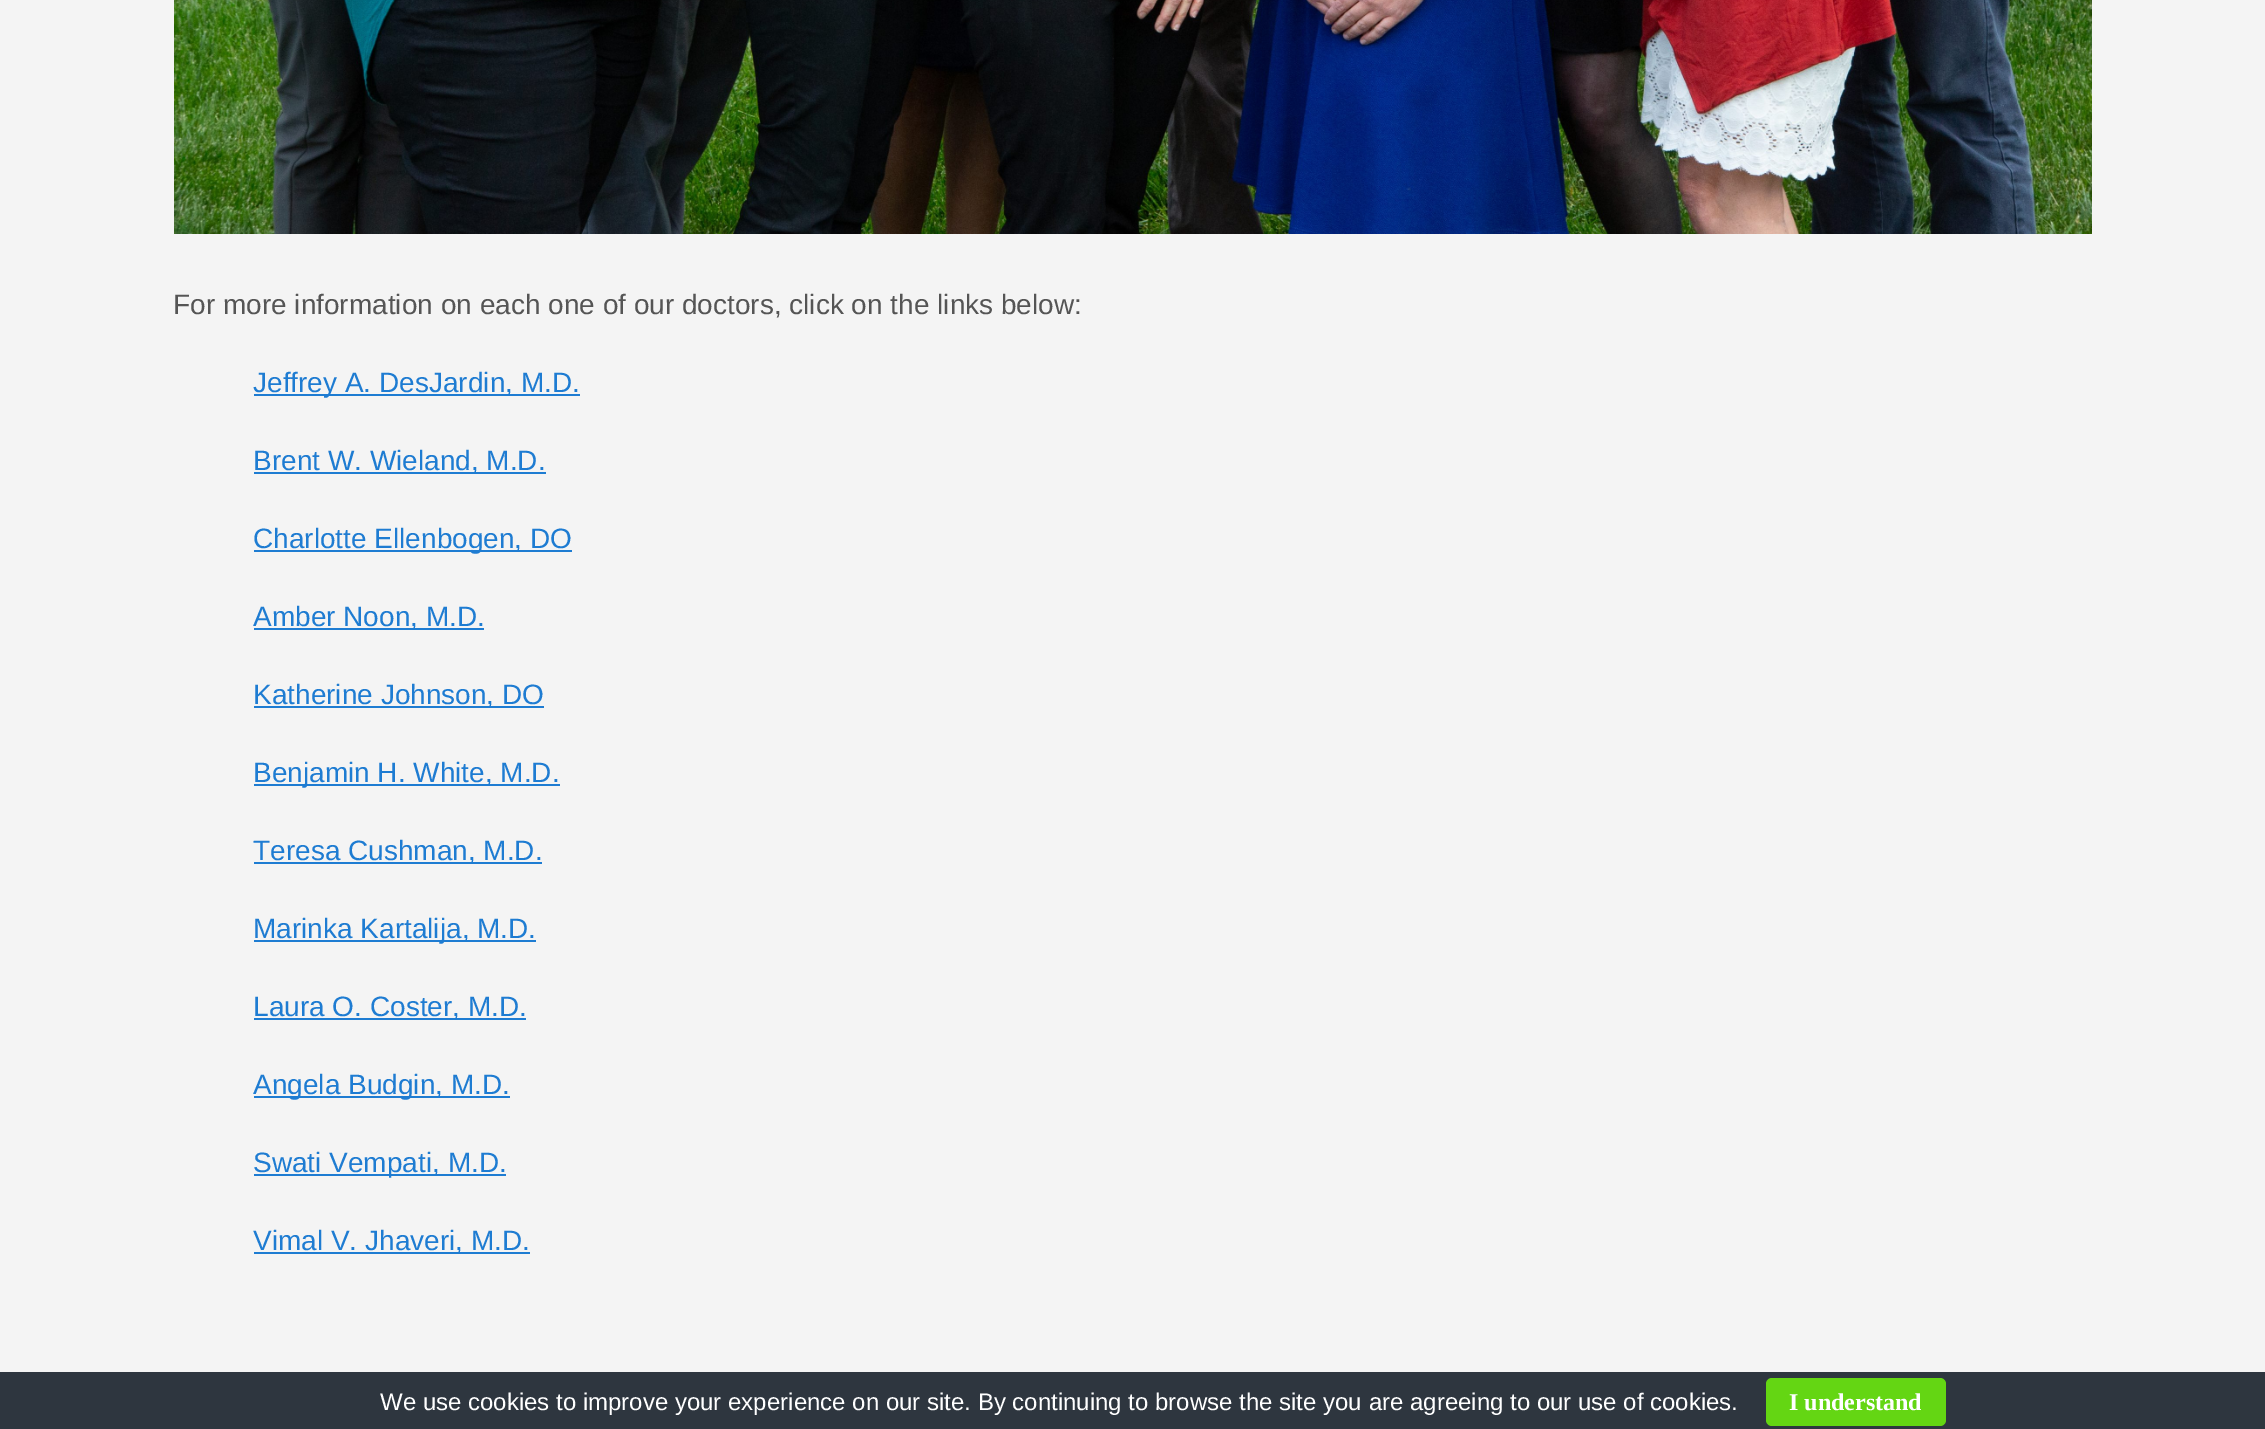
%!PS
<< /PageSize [2265 1429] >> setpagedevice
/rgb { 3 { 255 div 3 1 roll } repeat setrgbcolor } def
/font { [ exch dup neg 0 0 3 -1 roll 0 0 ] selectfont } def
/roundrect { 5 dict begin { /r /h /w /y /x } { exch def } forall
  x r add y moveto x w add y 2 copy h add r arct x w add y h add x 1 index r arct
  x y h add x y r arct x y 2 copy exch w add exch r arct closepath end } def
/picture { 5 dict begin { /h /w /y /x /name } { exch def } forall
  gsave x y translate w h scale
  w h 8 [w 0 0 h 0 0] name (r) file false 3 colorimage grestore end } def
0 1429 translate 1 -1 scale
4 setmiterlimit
244 244 244 rgb
0 0 2265 1429 rectfill
(img/1.rgb) 174 0 1918 234 picture
[
  [254 394 326 2 30 124 210]
  [254 472 292 2 30 124 210]
  [254 550 318 2 30 124 210]
  [254 628 230 2 30 124 210]
  [254 706 290 2 30 124 210]
  [254 784 306 2 30 124 210]
  [254 862 288 2 30 124 210]
  [254 940 282 2 30 124 210]
  [254 1018 272 2 30 124 210]
  [254 1096 256 2 30 124 210]
  [254 1174 252 2 30 124 210]
  [254 1252 276 2 30 124 210]
  [0 1372 2265 57 46 54 63]
] { aload pop rgb rectfill } forall
100 214 19 rgb
1766 1378 180 48 6 roundrect fill
/LiberationSans-Regular 28 font
85 85 85 rgb
173 314 moveto (For more information on each one of our doctors, click on the links below:) show
30 124 210 rgb
[
  [(Jeffrey A. DesJardin, M.D.) 253 392]
  [(Brent W. Wieland, M.D.) 253 470]
  [(Charlotte Ellenbogen, DO) 253 548]
  [(Amber Noon, M.D.) 253 626]
  [(Katherine Johnson, DO) 253 704]
  [(Benjamin H. White, M.D.) 253 782]
  [(Teresa Cushman, M.D.) 253 860]
  [(Marinka Kartalija, M.D.) 253 938]
  [(Laura O. Coster, M.D.) 253 1016]
  [(Angela Budgin, M.D.) 253 1094]
  [(Swati Vempati, M.D.) 253 1172]
  [(Vimal V. Jhaveri, M.D.) 253 1250]
] { aload pop moveto show } forall
/LiberationSans-Regular 24 font
255 255 255 rgb
380 1410 moveto (We use cookies to improve your experience on our site. By continuing to browse the site you are agreeing to our use of cookies.) show
/LiberationSerif-Bold 24 font
1789 1410 moveto (I understand) show
showpage
